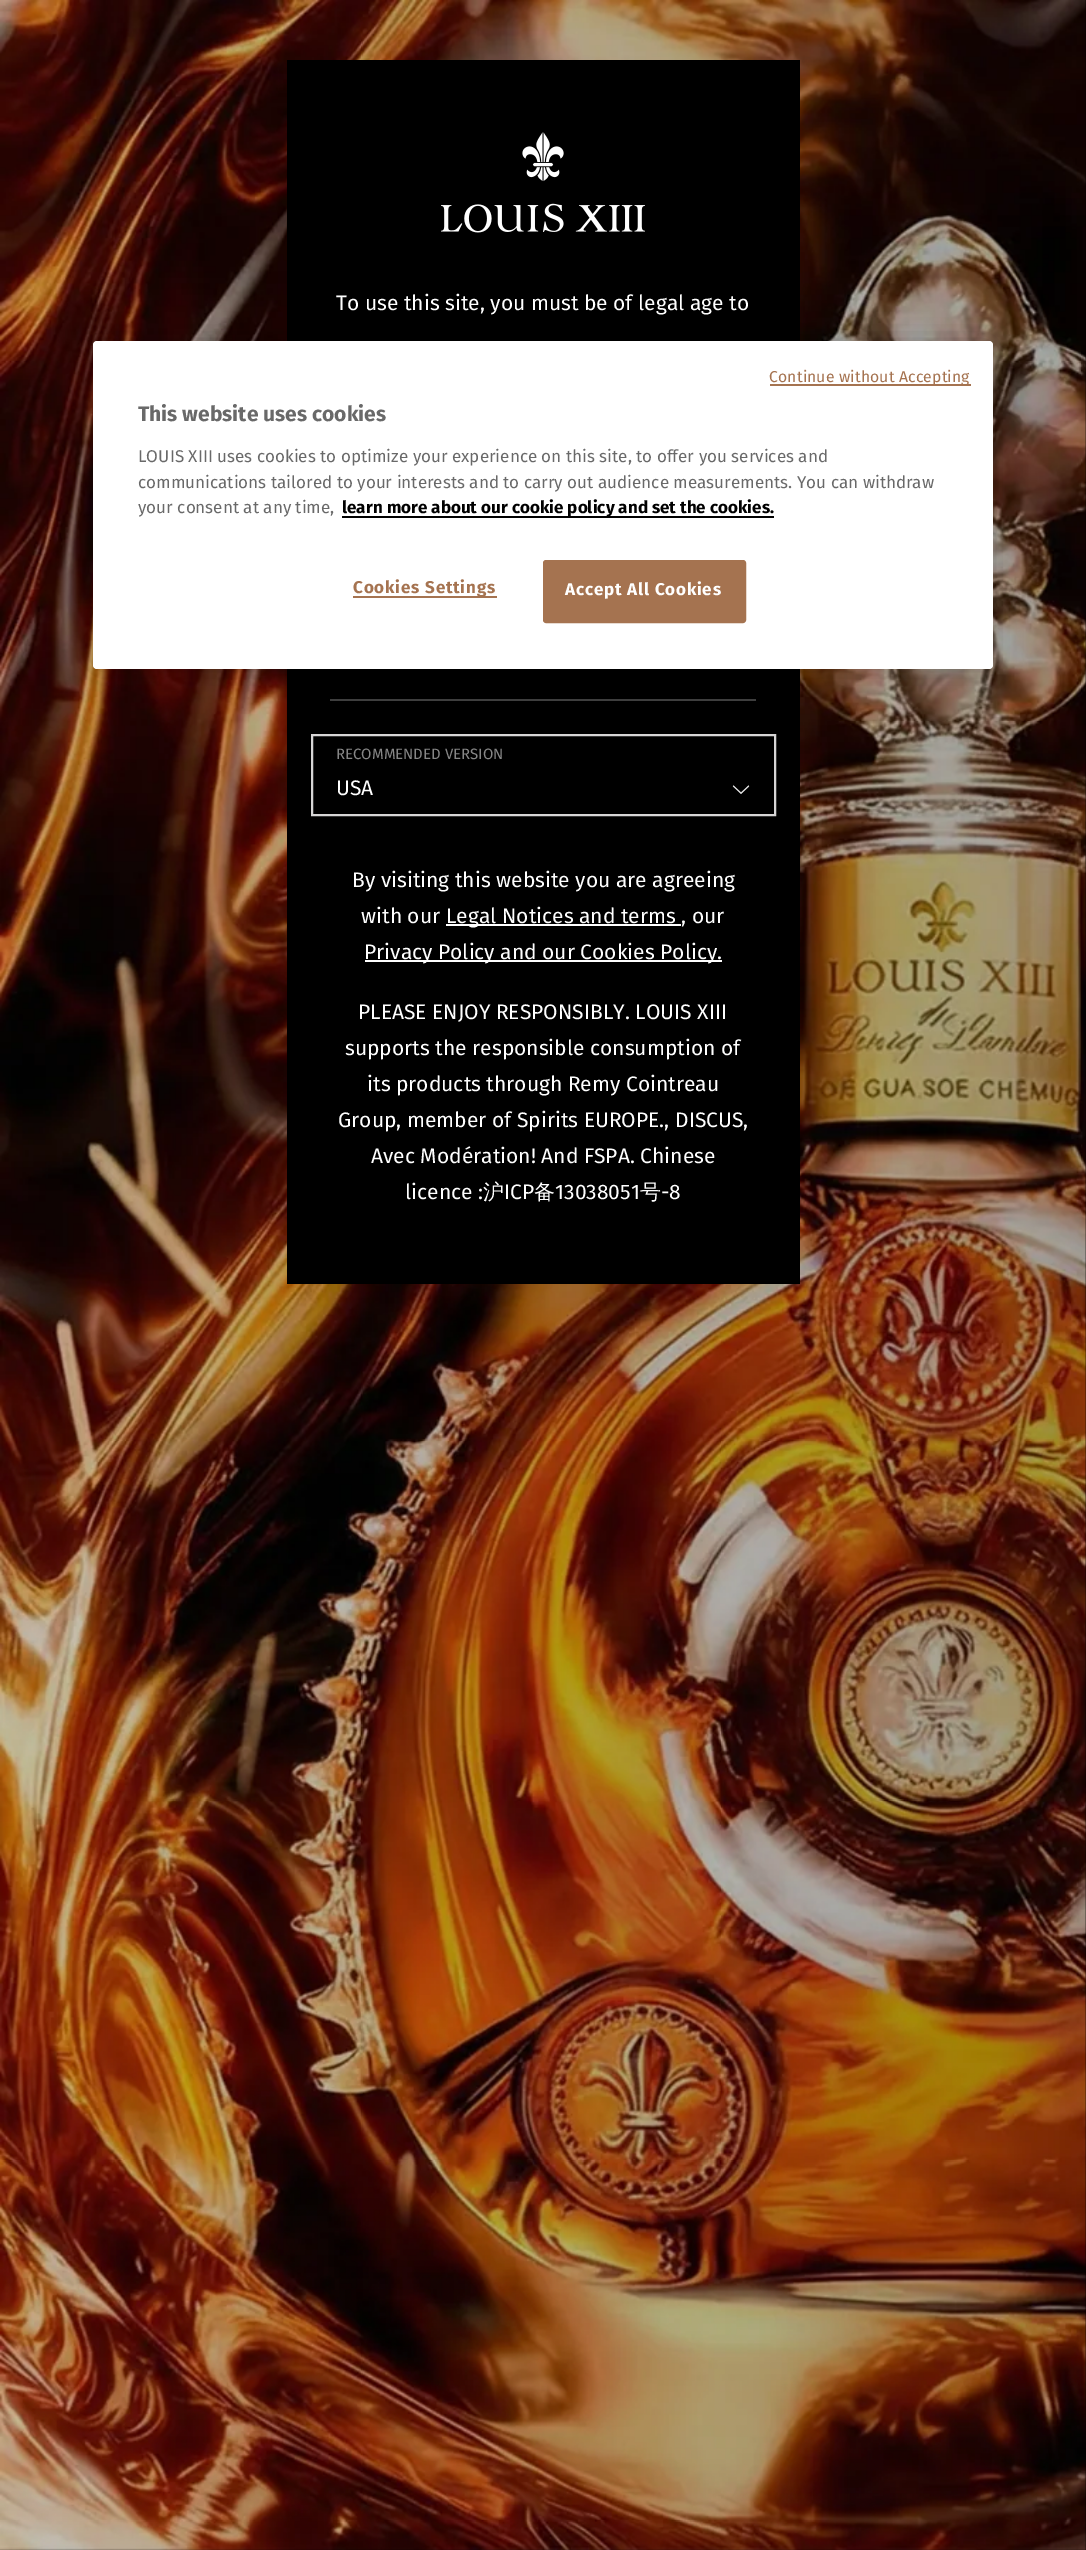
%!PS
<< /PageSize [1086 2550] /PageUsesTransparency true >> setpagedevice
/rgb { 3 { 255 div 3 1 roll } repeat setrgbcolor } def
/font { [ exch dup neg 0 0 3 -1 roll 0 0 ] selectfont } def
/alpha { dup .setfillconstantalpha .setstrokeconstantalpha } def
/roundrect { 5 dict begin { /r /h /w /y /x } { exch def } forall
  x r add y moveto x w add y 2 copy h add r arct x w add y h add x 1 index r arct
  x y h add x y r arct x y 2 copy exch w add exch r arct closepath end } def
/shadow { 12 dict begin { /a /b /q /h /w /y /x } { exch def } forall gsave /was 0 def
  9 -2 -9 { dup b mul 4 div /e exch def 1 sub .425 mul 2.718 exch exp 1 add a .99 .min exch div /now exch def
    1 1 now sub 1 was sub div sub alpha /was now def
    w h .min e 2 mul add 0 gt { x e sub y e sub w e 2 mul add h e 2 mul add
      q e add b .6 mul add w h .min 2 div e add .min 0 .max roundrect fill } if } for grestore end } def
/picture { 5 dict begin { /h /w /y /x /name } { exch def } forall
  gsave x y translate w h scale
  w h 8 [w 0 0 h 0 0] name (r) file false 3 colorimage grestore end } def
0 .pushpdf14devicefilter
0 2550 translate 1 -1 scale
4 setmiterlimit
0 0 0 rgb
0 0 1086 2550 rectfill
(img/1.rgb) 0 0 1086 2550 picture
287 60 513 1224 rectfill
(img/2.rgb) 441 132 204 101 picture
62 62 62 rgb
330 699 426 2 rectfill
215 214 214 rgb
2 setlinewidth
312 735 463 80 rectstroke
(img/3.rgb) 732 785 18 9 picture
255 255 255 rgb
446 924 235 2 rectfill
365 960 357 2 rectfill
0 0 0 rgb
93 341 900 328 4 13.5 0.2 shadow
255 255 255 rgb
93 341 900 328 4 roundrect fill
[
  [770 384 201 2 165 115 80]
  [342 516 432 2 0 0 0]
  [353 596 144 2 165 115 80]
] { aload pop rgb rectfill } forall
544 561 201 61 2 roundrect gsave fill grestore
stroke
/FiraSans-Regular 21 font
255 255 255 rgb
336 310 moveto (To use this site, you must be of legal age to) show
/FiraSans-Regular 15 font
134 134 134 rgb
336 759 moveto (RECOMMENDED VERSION) show
/FiraSans-Regular 21 font
255 255 255 rgb
[
  [(USA) 336 795]
  [(By visiting this website you are agreeing) 352 887]
  [(with our) 361 923]
  [(Legal Notices and terms , our) 446 923]
  [(Privacy Policy and our Cookies Policy.) 364 959]
  [(PLEASE ENJOY RESPONSIBLY. LOUIS XIII) 358 1019]
  [(supports the responsible consumption of) 345 1055]
  [(its products through Remy Cointreau) 367 1091]
  [(Group, member of Spirits EUROPE., DISCUS,) 338 1127]
  [(Avec Modération! And FSPA. Chinese) 371 1163]
  [(licence :) 405 1199]
] { aload pop moveto show } forall
/WenQuanYiZenHei-Medium 21 font
483 1199 moveto (沪) show
/FiraSans-Regular 21 font
504 1199 moveto (ICP) show
/WenQuanYiZenHei-Medium 21 font
534 1199 moveto (备) show
/FiraSans-Regular 21 font
555 1199 moveto (13038051) show
/WenQuanYiZenHei-Medium 21 font
640 1199 moveto (号) show
/FiraSans-Regular 21 font
661 1199 moveto (-8) show
/FiraSans-Regular 15.75 font
165 115 80 rgb
769 382 moveto 0.15 0 (Continue without Accepting) ashow
/FiraSans-Bold 21 font
105 105 105 rgb
138 421 moveto (This website uses cookies) show
/FiraSans-Regular 17.05 font
[
  [(LOUIS XIII uses cookies to optimize your experience on this site, to offer you services and) 138 462]
  [(communications tailored to your interests and to carry out audience measurements. You can withdraw) 138 488]
  [(your consent at any time,) 138 513]
] { aload pop moveto show } forall
/FiraSans-Bold 17.05 font
0 0 0 rgb
342 513 moveto (learn more about our cookie policy and set the cookies.) show
165 115 80 rgb
353 593 moveto 0.8 0 (Cookies Settings) ashow
255 255 255 rgb
565 595 moveto 0.8 0 (Accept All Cookies) ashow
.poppdf14devicefilter showpage
